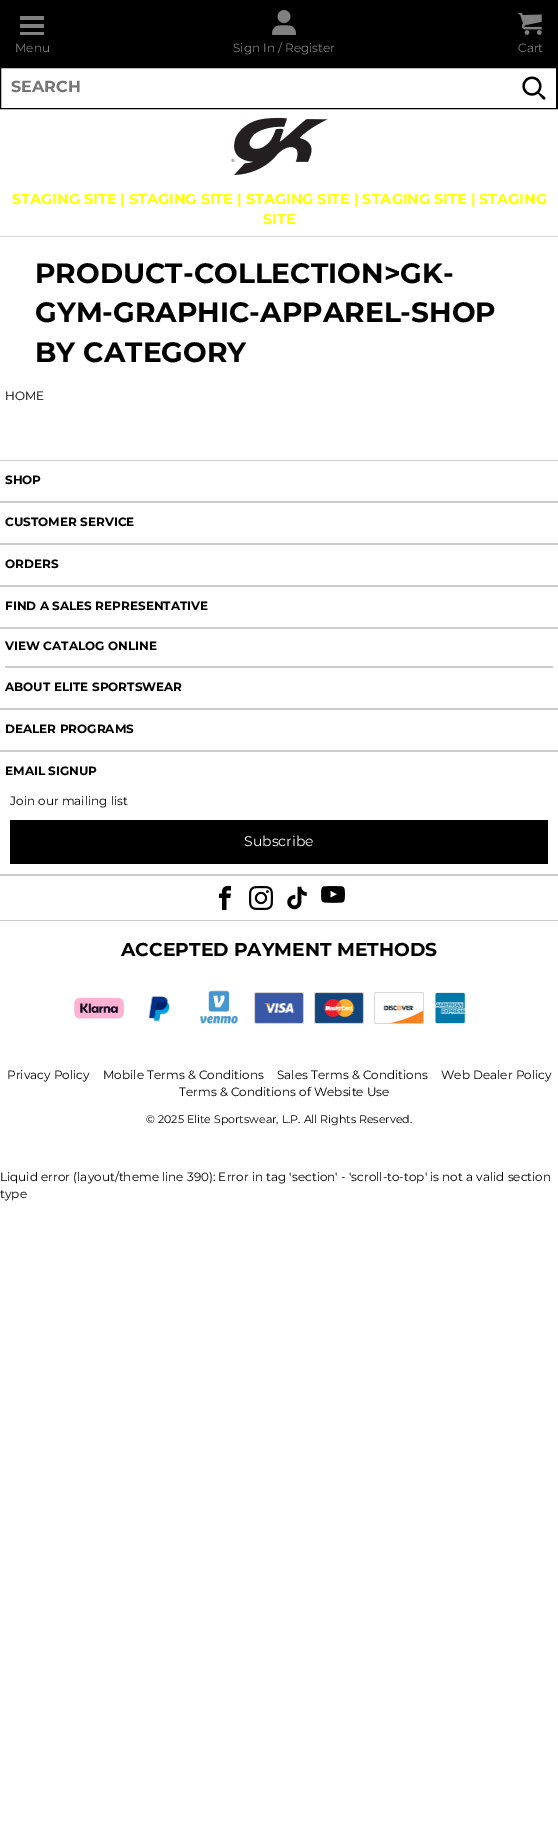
%!PS
<< /PageSize [558 1844] >> setpagedevice
/rgb { 3 { 255 div 3 1 roll } repeat setrgbcolor } def
/font { [ exch dup neg 0 0 3 -1 roll 0 0 ] selectfont } def
/picture { 5 dict begin { /h /w /y /x /name } { exch def } forall
  gsave x y translate w h scale
  w h 8 [w 0 0 h 0 0] name (r) file false 3 colorimage grestore end } def
0 1844 translate 1 -1 scale
4 setmiterlimit
255 255 255 rgb
0 0 558 1844 rectfill
[
  [0 0 558 67 0 0 0]
  [20 16 24 4 128 128 128]
  [20 24 24 4 128 128 128]
  [20 32 24 3 128 128 128]
] { aload pop rgb rectfill } forall
(img/1.rgb) 272 10 24 25 picture
(img/2.rgb) 518 13 24 22 picture
0 0 0 rgb
0.5 67.5 557 41 rectstroke
556 68 1 40 rectfill
(img/3.rgb) 522 76 24 24 picture
217 217 217 rgb
0 236 558 1 rectfill
(img/4.rgb) 231 117 97 58 picture
[
  [0 460 558 1 204 204 204]
  [0 920 558 1 204 204 204]
  [0 501 558 2 204 204 204]
  [0 543 558 2 204 204 204]
  [0 585 558 2 204 204 204]
  [0 627 558 2 204 204 204]
  [5 666 548 2 204 204 204]
  [0 708 558 2 204 204 204]
  [0 750 558 2 204 204 204]
  [0 874 558 2 204 204 204]
  [10 820 538 44 0 0 0]
] { aload pop rgb rectfill } forall
(img/5.rgb) 219 886 12 24 picture
(img/6.rgb) 249 886 24 24 picture
(img/7.rgb) 287 886 20 24 picture
(img/8.rgb) 321 886 24 17 picture
(img/9.rgb) 74 997 50 22 picture
(img/10.rgb) 148 996 22 25 picture
(img/11.rgb) 199 990 40 34 picture
(img/12.rgb) 254 992 50 32 picture
(img/13.rgb) 314 992 50 32 picture
(img/14.rgb) 374 992 50 32 picture
(img/15.rgb) 435 992 31 32 picture
/Montserrat-Thin 12 font
128 128 128 rgb
[
  [(Menu) 15 52]
  [(Sign In / Register) 233 52]
  [(Cart) 518 52]
] { aload pop moveto show } forall
/Montserrat-Bold 16 font
117 117 117 rgb
11 92 moveto (SEARCH) show
/Montserrat-Bold 14.4 font
255 255 0 rgb
12 204 moveto (STAGING SITE | STAGING SITE | STAGING SITE | STAGING SITE | STAGING) show
263 224 moveto (SITE) show
/Montserrat-Bold 28 font
0 0 0 rgb
[
  [(PRODUCT-COLLECTION>GK-) 35 283]
  [(GYM-GRAPHIC-APPAREL-SHOP) 35 322]
  [(BY CATEGORY) 35 362]
] { aload pop moveto show } forall
/Montserrat-Thin 12 font
5 400 moveto (HOME) show
/Montserrat-Bold 12 font
[
  [(SHOP) 5 484]
  [(CUSTOMER SERVICE) 5 526]
  [(ORDERS) 5 568]
  [(FIND A SALES REPRESENTATIVE) 5 610]
  [(VIEW CATALOG ONLINE) 5 650]
  [(ABOUT ELITE SPORTSWEAR) 5 691]
  [(DEALER PROGRAMS) 5 733]
  [(EMAIL SIGNUP) 5 775]
] { aload pop moveto show } forall
/Montserrat-Thin 12 font
10 805 moveto (Join our mailing list) show
/Montserrat-Thin 14 font
255 255 255 rgb
244 846 moveto (Subscribe) show
/Montserrat-Bold 18.7 font
0 0 0 rgb
121 956 moveto (ACCEPTED PAYMENT METHODS) show
/Montserrat-Thin 12 font
[
  [(Privacy Policy) 7 1079]
  [(Mobile Terms & Conditions) 103 1079]
  [(Sales Terms & Conditions) 277 1079]
  [(Web Dealer Policy) 441 1079]
  [(Terms & Conditions of Website Use) 179 1096]
] { aload pop moveto show } forall
/Montserrat-Thin 11 font
146 1123 moveto (© 2025 Elite Sportswear, L.P. All Rights Reserved.) show
/Montserrat-Thin 12 font
0 1181 moveto (Liquid error \(layout/theme line 390\): Error in tag 'section' - 'scroll-to-top' is not a valid section) show
0 1198 moveto (type) show
showpage
